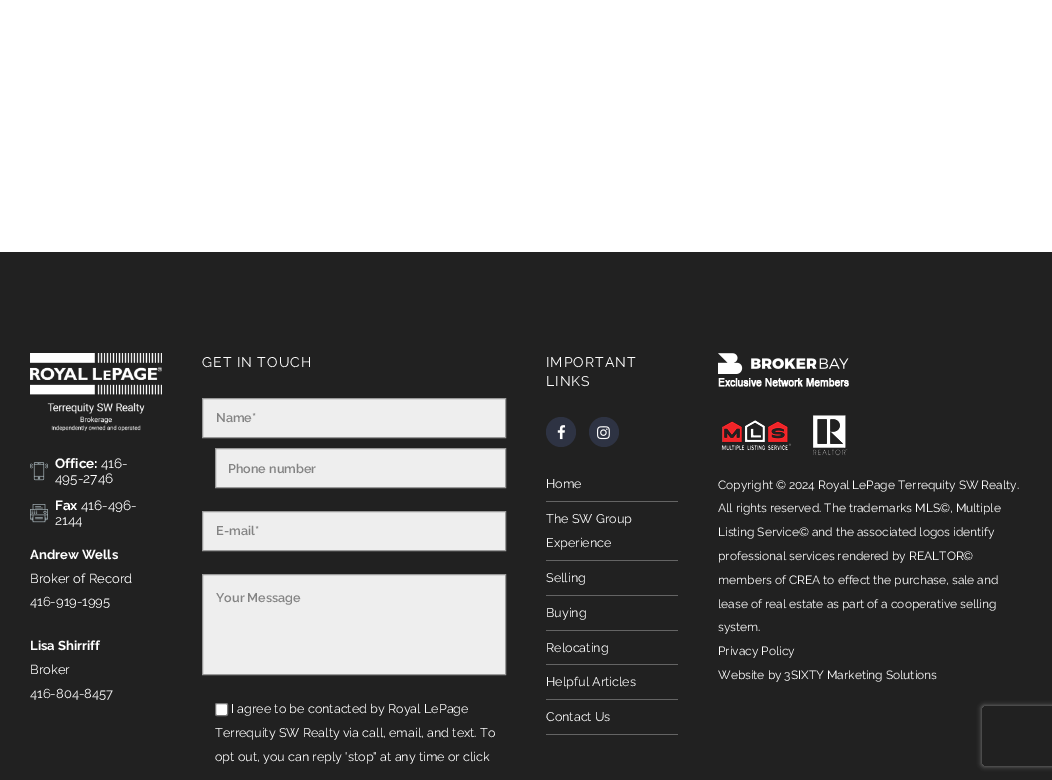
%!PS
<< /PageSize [1052 780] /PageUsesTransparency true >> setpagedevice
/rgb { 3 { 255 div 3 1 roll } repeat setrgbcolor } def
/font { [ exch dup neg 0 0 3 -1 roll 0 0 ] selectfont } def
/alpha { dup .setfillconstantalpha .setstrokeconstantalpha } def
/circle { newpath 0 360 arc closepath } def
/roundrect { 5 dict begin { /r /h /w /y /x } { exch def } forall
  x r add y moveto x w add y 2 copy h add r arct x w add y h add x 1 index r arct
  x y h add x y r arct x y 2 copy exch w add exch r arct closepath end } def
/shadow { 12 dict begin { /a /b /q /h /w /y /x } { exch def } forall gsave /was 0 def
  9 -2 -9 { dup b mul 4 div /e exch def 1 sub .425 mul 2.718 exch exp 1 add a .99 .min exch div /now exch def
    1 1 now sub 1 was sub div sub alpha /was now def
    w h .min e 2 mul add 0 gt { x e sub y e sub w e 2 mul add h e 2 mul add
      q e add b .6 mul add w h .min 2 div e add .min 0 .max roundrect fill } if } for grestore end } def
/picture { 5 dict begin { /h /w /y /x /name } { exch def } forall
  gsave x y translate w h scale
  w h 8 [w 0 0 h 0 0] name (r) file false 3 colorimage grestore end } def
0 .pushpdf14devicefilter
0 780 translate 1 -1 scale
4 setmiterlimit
255 255 255 rgb
0 0 1052 780 rectfill
33 33 33 rgb
0 252 1052 528 rectfill
(img/1.rgb) 30 353 132 78 picture
(img/2.rgb) 30 462 18 19 picture
(img/3.rgb) 30 504 18 19 picture
238 238 238 rgb
202.5 398.5 moveto 505.5 398.5 lineto 505.5 437.5 lineto 202.5 437.5 lineto closepath gsave fill grestore
153 153 153 rgb
stroke
238 238 238 rgb
215.5 448.5 moveto 505.5 448.5 lineto 505.5 487.5 lineto 215.5 487.5 lineto closepath gsave fill grestore
153 153 153 rgb
stroke
238 238 238 rgb
202.5 511.5 moveto 505.5 511.5 lineto 505.5 550.5 lineto 202.5 550.5 lineto closepath gsave fill grestore
153 153 153 rgb
stroke
238 238 238 rgb
202.5 574.5 moveto 505.5 574.5 lineto 505.5 674.5 lineto 202.5 674.5 lineto closepath gsave fill grestore
153 153 153 rgb
stroke
255 255 255 rgb
215.5 703.5 12 12 1.5 roundrect gsave fill grestore
118 118 118 rgb
stroke
46 51 67 rgb
561 432 15 circle fill
(img/4.rgb) 557 425 9 15 picture
604 432 15 circle fill
(img/5.rgb) 597 426 13 14 picture
[
  [546 501 132 1 100 100 100]
  [546 560 132 1 100 100 100]
  [546 595 132 1 100 100 100]
  [546 630 132 1 100 100 100]
  [546 664 132 1 100 100 100]
  [546 699 132 1 100 100 100]
  [546 734 132 1 100 100 100]
] { aload pop rgb rectfill } forall
(img/6.rgb) 718 353 131 34 picture
(img/7.rgb) 721 415 127 41 picture
gsave
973 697 moveto 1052 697 lineto 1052 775 lineto 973 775 lineto closepath 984 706 moveto 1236 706 lineto 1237 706 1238 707 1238 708 curveto 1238 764 lineto 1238 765 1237 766 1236 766 curveto 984 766 lineto 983 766 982 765 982 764 curveto 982 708 lineto 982 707 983 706 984 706 curveto closepath eoclip newpath
128 128 128 rgb
982 706 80 60 2 2.5 1 shadow
grestore
/Raleway-Bold 13.5 font
255 255 255 rgb
55 468 moveto (Office:) show
/Raleway-Regular 13.5 font
101 468 moveto (416-) show
55 483 moveto (495-2746) show
/Raleway-Bold 13.5 font
55 510 moveto (Fax) show
/Raleway-Regular 13.5 font
81 510 moveto (416-496-) show
55 525 moveto (2144) show
/Raleway-Bold 13 font
30 559 moveto (Andrew Wells) show
/Raleway-Regular 13 font
30 583 moveto (Broker of Record) show
30 606 moveto (416-919-1995) show
/Raleway-Bold 13 font
30 650 moveto (Lisa Shirriff) show
/Raleway-Regular 13 font
30 674 moveto (Broker) show
30 698 moveto (416-804-8457) show
/Raleway-Regular 14 font
202 367 moveto 1 0 (GET IN TOUCH) ashow
/Raleway-SemiBold 12.6 font
131 131 131 rgb
[
  [(Name*) 216 422]
  [(Phone number) 228 473]
  [(E-mail*) 216 535]
  [(Your Message) 216 602]
] { aload pop moveto show } forall
/Raleway-Regular 12.6 font
255 255 255 rgb
[
  [(I agree to be contacted by Royal LePage) 231 713]
  [(Terrequity SW Realty via call, email, and text. To) 215 737]
  [(opt out, you can reply 'stop" at any time or click) 215 761]
] { aload pop moveto show } forall
/Raleway-Regular 14 font
546 367 moveto 1 0 (IMPORTANT) ashow
546 386 moveto 1 0 (LINKS) ashow
/Raleway-Regular 12.6 font
[
  [(Home) 546 488]
  [(The SW Group) 546 523]
  [(Experience) 546 547]
  [(Selling) 546 582]
  [(Buying) 546 617]
  [(Relocating) 546 652]
  [(Helpful Articles) 546 686]
  [(Contact Us) 546 721]
] { aload pop moveto show } forall
/Raleway-Regular 12 font
[
  [(Copyright © 2024 Royal LePage Terrequity SW Realty.) 718 489]
  [(All rights reserved. The trademarks MLS©, Multiple) 718 512]
  [(Listing Service© and the associated logos identify) 718 536]
  [(professional services rendered by REALTOR©) 718 560]
  [(members of CREA to effect the purchase, sale and) 718 584]
  [(lease of real estate as part of a cooperative selling) 718 608]
  [(system.) 718 631]
  [(Privacy Policy) 718 655]
  [(Website by 3SIXTY Marketing Solutions) 718 679]
] { aload pop moveto show } forall
.poppdf14devicefilter showpage
